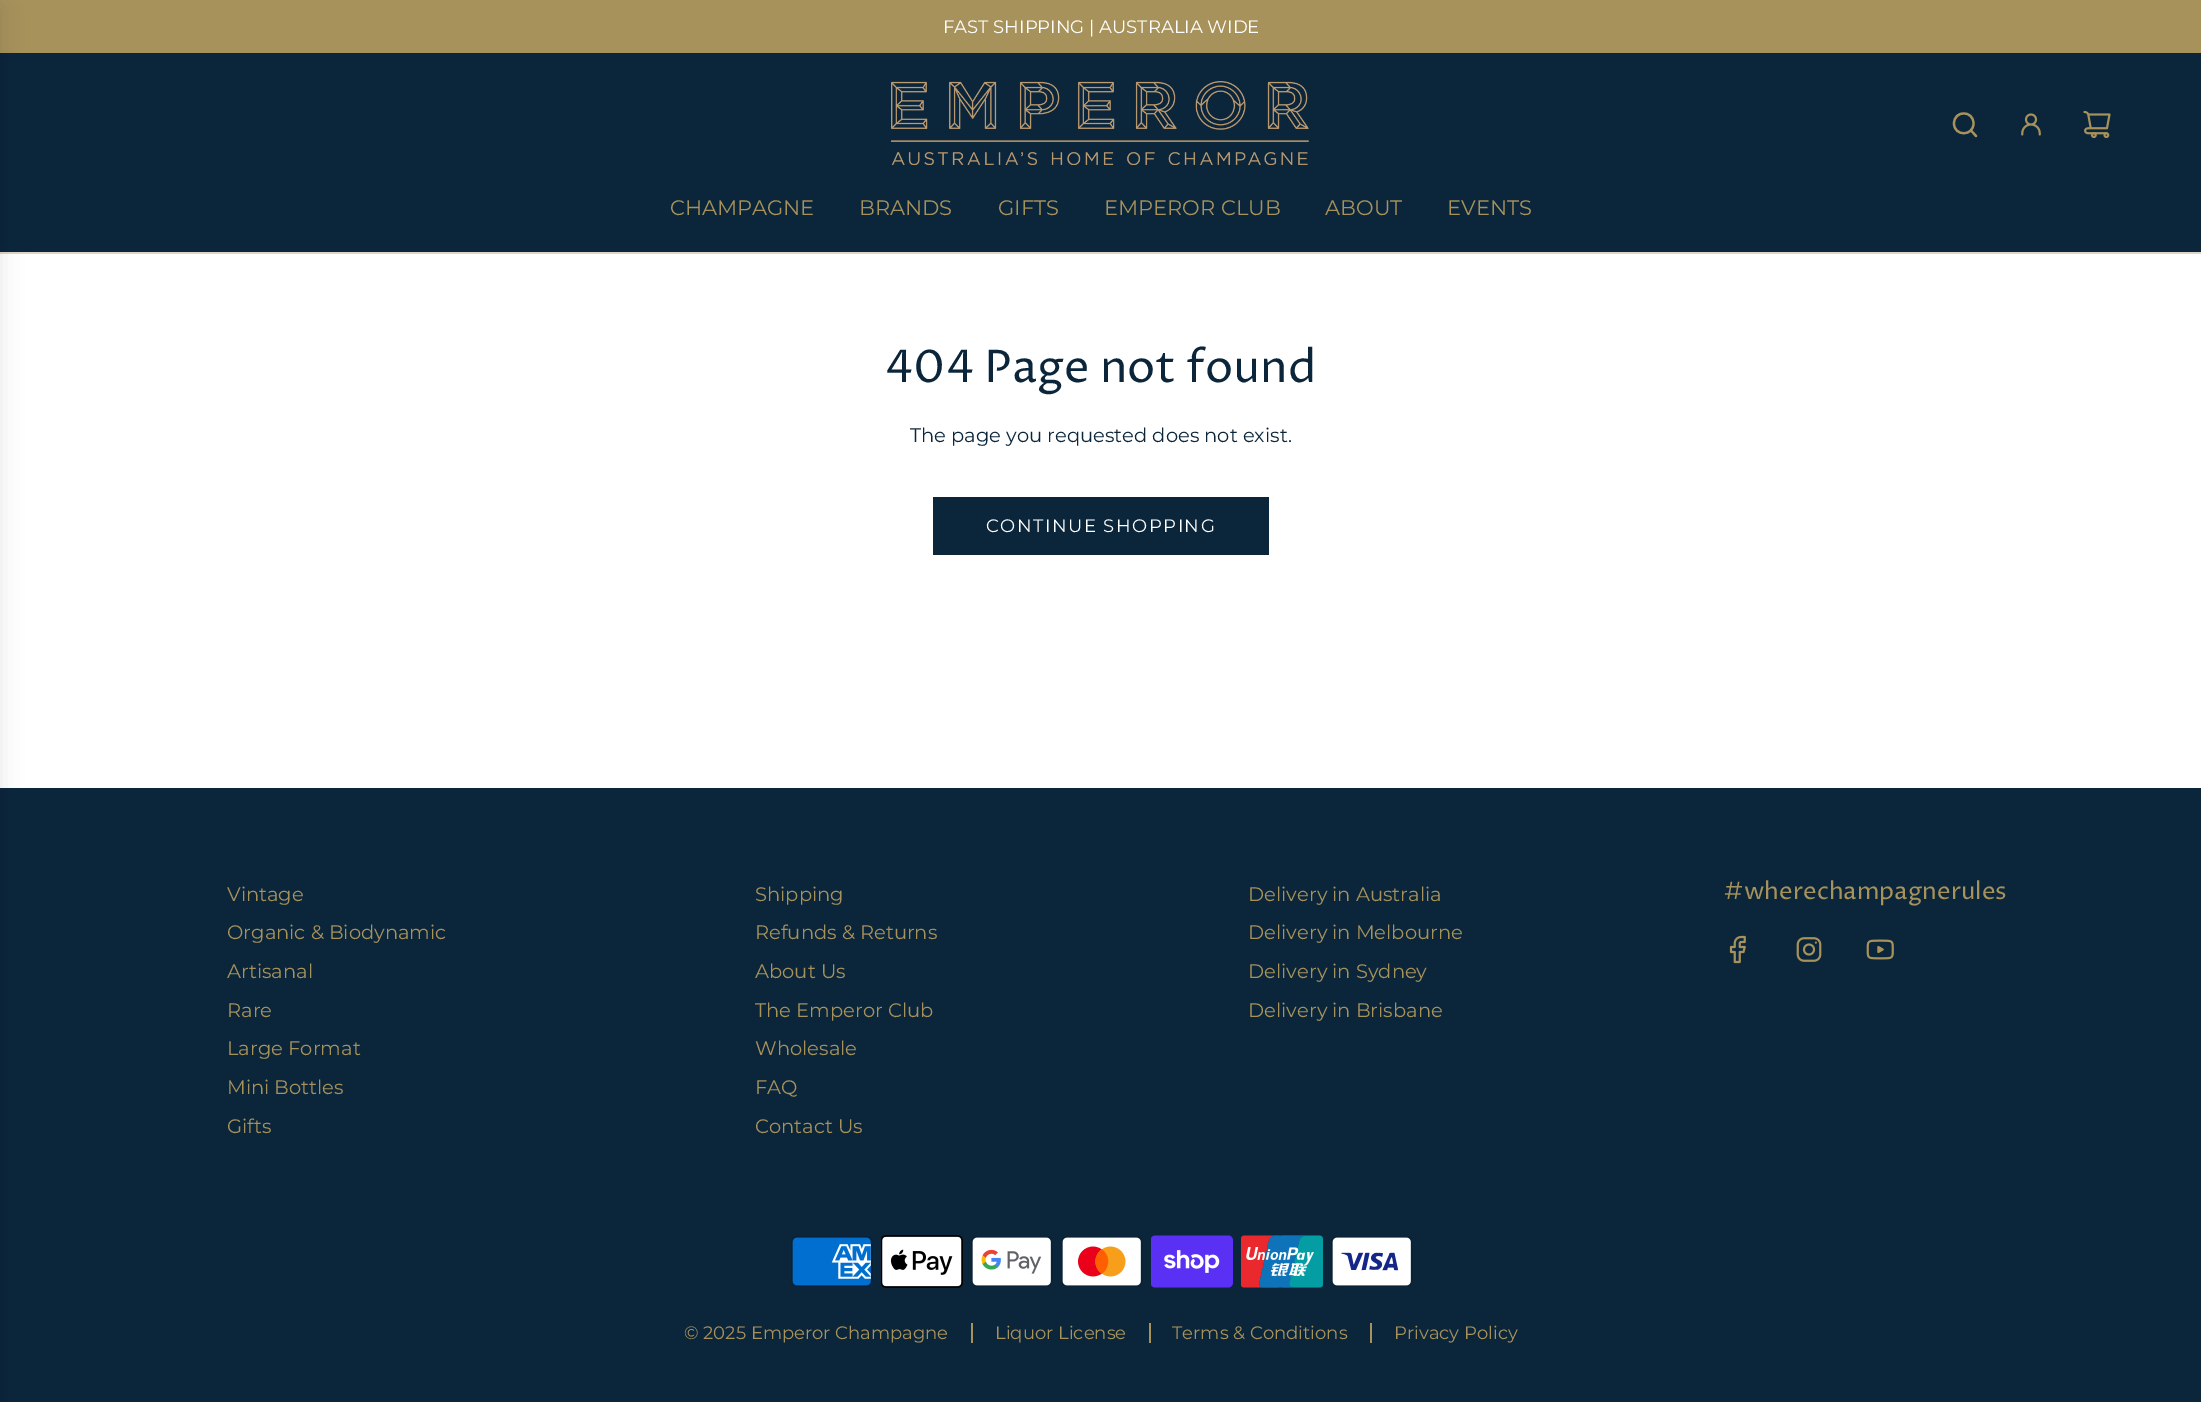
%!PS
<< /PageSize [2201 1402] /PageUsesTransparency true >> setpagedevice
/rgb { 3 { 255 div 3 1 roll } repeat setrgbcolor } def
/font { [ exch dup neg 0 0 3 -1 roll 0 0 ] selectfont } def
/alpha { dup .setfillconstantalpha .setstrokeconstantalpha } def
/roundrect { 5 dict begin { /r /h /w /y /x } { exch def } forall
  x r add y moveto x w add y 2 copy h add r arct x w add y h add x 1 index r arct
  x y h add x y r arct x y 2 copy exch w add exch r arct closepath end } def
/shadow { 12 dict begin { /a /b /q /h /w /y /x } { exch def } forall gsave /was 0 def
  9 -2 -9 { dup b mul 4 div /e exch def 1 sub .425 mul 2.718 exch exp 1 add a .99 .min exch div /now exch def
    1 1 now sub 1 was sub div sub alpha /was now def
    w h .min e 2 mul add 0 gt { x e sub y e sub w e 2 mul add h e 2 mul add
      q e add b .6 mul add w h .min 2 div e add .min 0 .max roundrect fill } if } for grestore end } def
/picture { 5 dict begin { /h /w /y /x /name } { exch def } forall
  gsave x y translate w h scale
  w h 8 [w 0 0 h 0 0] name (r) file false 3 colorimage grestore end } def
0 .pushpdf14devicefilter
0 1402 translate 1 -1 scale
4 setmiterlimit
255 255 255 rgb
0 0 2201 1402 rectfill
[
  [0 0 2201 53 167 146 91]
  [0 53 2201 199 11 37 59]
  [0 252 2201 2 221 214 197]
  [0 788 2201 614 11 37 59]
] { aload pop rgb rectfill } forall
0 0 0 rgb
-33 8 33 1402 0 11 0.1 shadow
(img/1.rgb) 891 81 418 84 picture
167 146 91 rgb
2.2 setlinewidth
1 setlinecap
1 setlinejoin
1971.5 131 moveto 1976 136 lineto 1954 123.5 moveto 1954 136.5 1973.5 136.5 1973.5 123.5 curveto 1973.5 110 1954 110 1954 123.5 curveto closepath stroke
(img/2.rgb) 2021 113 20 23 picture
(img/3.rgb) 2083 110 28 29 picture
11 37 59 rgb
933 497 336 58 rectfill
(img/4.rgb) 1729 935 17 29 picture
(img/5.rgb) 1796 937 26 25 picture
(img/6.rgb) 1866 939 28 21 picture
(img/7.rgb) 791 1236 82 51 picture
(img/8.rgb) 881 1235 82 53 picture
(img/9.rgb) 971 1236 82 51 picture
(img/10.rgb) 1061 1236 82 51 picture
(img/11.rgb) 1151 1235 82 53 picture
(img/12.rgb) 1241 1235 82 53 picture
(img/13.rgb) 1331 1236 82 51 picture
[
  [971 1323 2 20 167 146 91]
  [1149 1323 2 20 167 146 91]
  [1370 1323 2 20 167 146 91]
] { aload pop rgb rectfill } forall
/Montserrat-Regular 18 font
255 255 255 rgb
943 33 moveto (FAST SHIPPING | AUSTRALIA WIDE) show
/Montserrat-Regular 21 font
167 146 91 rgb
[
  [(CHAMPAGNE) 670 215]
  [(BRANDS) 859 215]
  [(GIFTS) 998 215]
  [(EMPEROR CLUB) 1104 215]
  [(ABOUT) 1325 215]
  [(EVENTS) 1447 215]
] { aload pop moveto show } forall
/ProzaLibre-Regular 45 font
11 37 59 rgb
885 382 moveto (404 Page not found) show
/Montserrat-Regular 19.5 font
910 442 moveto (The page you requested does not exist.) show
/Montserrat-Regular 18 font
255 255 255 rgb
986 532 moveto 1.5 0 (CONTINUE SHOPPING) ashow
/Montserrat-Regular 19.5 font
167 146 91 rgb
[
  [(Vintage) 227 901]
  [(Organic & Biodynamic) 227 939]
  [(Artisanal) 227 978]
  [(Rare) 227 1017]
  [(Large Format) 227 1055]
  [(Mini Bottles) 227 1094]
  [(Gifts) 227 1133]
  [(Shipping) 755 901]
  [(Refunds & Returns) 755 939]
  [(About Us) 755 978]
  [(The Emperor Club) 755 1017]
  [(Wholesale) 755 1055]
  [(FAQ) 755 1094]
  [(Contact Us) 755 1133]
  [(Delivery in Australia) 1248 901]
  [(Delivery in Melbourne) 1248 939]
  [(Delivery in Sydney) 1248 978]
  [(Delivery in Brisbane) 1248 1017]
] { aload pop moveto show } forall
/ProzaLibre-Regular 24 font
1723 899 moveto (#wherechampagnerules) show
/Montserrat-Regular 18 font
[
  [(© 2025 Emperor Champagne) 684 1339]
  [(Liquor License) 995 1339]
  [(Terms & Conditions) 1172 1339]
  [(Privacy Policy) 1394 1339]
] { aload pop moveto show } forall
.poppdf14devicefilter showpage
